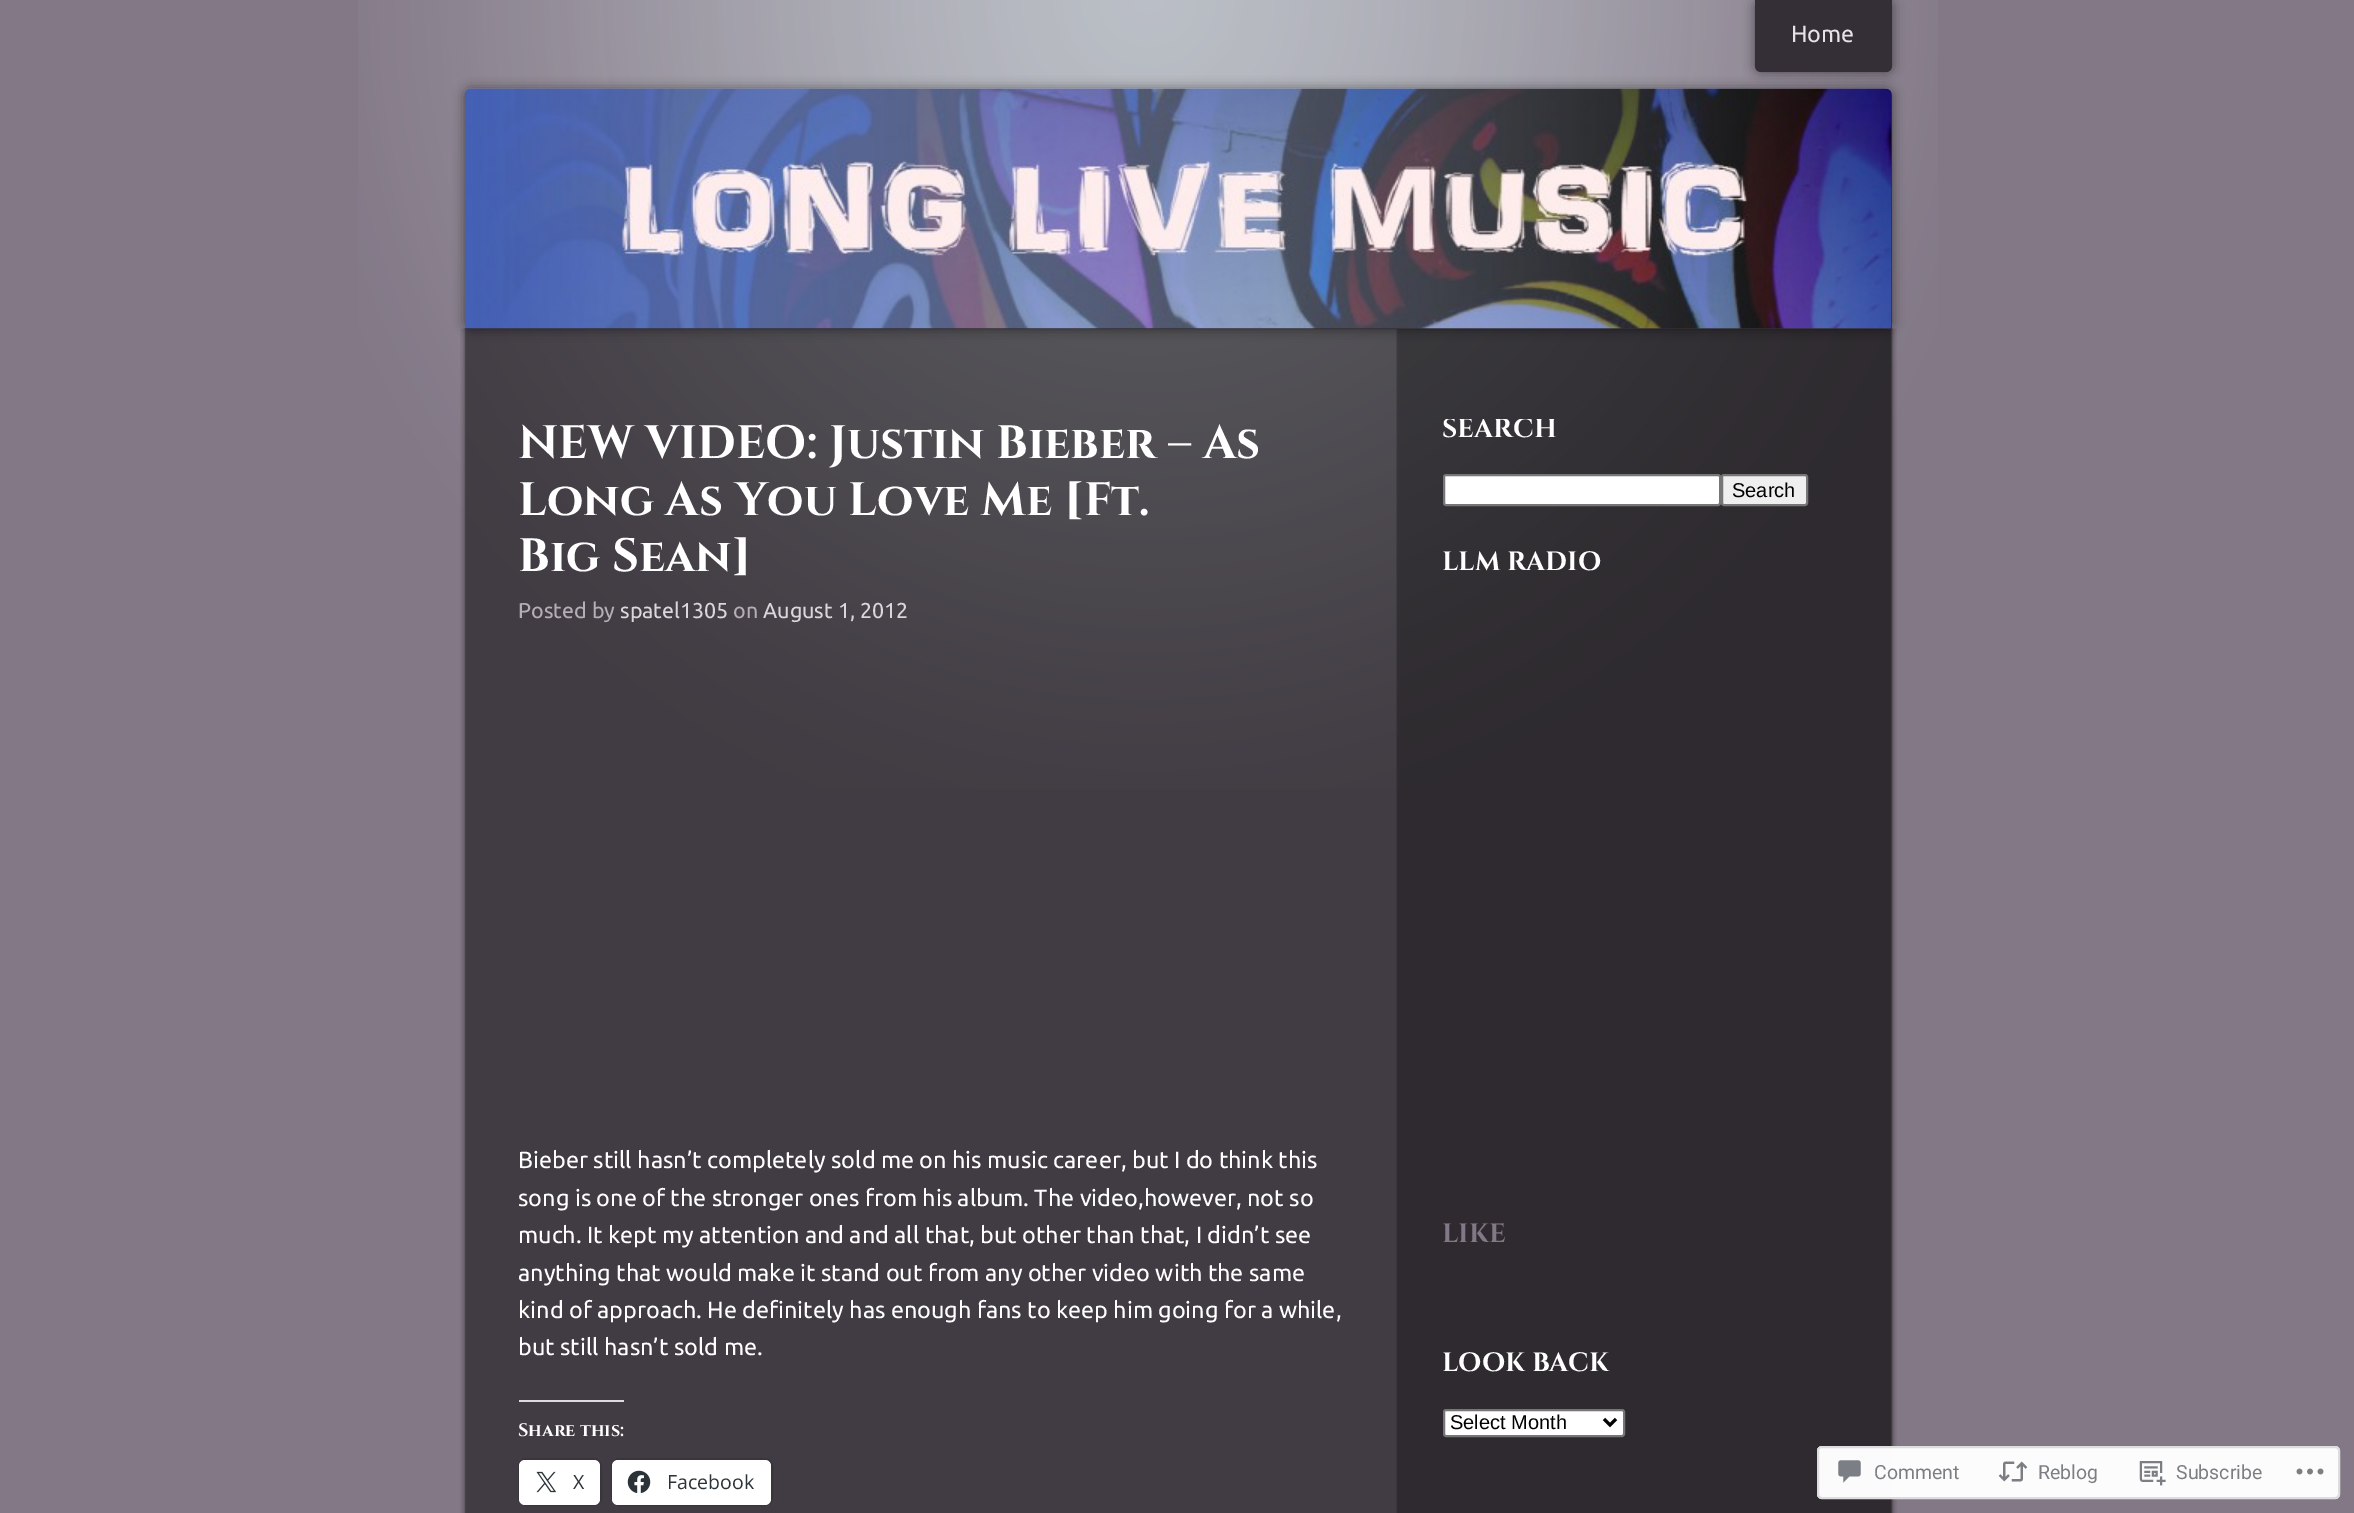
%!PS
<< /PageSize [2354 1513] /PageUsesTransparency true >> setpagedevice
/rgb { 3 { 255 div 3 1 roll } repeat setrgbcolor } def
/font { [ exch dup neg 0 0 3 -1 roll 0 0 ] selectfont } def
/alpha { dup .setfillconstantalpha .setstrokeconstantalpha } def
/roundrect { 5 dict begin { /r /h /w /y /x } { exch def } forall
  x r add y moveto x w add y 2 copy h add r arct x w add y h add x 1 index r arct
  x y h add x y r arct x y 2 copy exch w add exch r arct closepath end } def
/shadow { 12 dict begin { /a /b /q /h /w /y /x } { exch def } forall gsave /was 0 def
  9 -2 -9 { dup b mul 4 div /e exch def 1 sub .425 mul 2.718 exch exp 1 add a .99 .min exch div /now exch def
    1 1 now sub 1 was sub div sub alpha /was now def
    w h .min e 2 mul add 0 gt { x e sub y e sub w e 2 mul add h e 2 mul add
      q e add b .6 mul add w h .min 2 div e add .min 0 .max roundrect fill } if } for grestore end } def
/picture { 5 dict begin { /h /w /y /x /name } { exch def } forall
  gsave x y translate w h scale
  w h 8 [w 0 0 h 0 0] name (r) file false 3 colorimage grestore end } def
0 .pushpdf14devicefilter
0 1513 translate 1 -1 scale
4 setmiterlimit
131 120 134 rgb
0 0 2354 1513 rectfill
(img/1.rgb) 358 0 1580 789 picture
0 0 0 rgb
1755 0 137 72 6 6 0.5 shadow
52 47 54 rgb
1755 0 moveto 1892 0 lineto 1892 66 lineto 1892 69.5 1889.5 72 1886 72 curveto 1761 72 lineto 1757.5 72 1755 69.5 1755 66 curveto closepath fill
(img/3.rgb) 460 328 1437 1185 picture
0 0 0 rgb
465 89 1427 240 6 6 0.5 shadow
52 47 54 rgb
471 89 moveto 1886 89 lineto 1889.5 89 1892 91.5 1892 95 curveto 1892 329 lineto 465 329 lineto 465 95 lineto 465 91.5 467.5 89 471 89 curveto closepath fill
(img/2.rgb) 465 88 1427 241 picture
220 220 222 rgb
519 1400 105 2 rectfill
0.12 alpha
0 0 0 rgb
2 setlinewidth
519 1459 82 46 7 roundrect stroke
1 alpha
255 255 255 rgb
519 1460 81 45 6 roundrect fill
(img/4.rgb) 536 1471 21 22 picture
0.12 alpha
0 0 0 rgb
612 1459 160 46 7 roundrect stroke
1 alpha
255 255 255 rgb
612 1460 159 45 6 roundrect fill
(img/5.rgb) 627 1470 24 23 picture
1444 475 276 30 2 roundrect gsave fill grestore
118 118 118 rgb
stroke
239 239 239 rgb
1722 475 85 30 2 roundrect gsave fill grestore
118 118 118 rgb
stroke
255 255 255 rgb
1444 1410 180 26 2 roundrect gsave fill grestore
118 118 118 rgb
stroke
0 0 0 rgb
3 setlinewidth
1604 1419 moveto 1610 1425 lineto 1616 1419 lineto stroke
0.98 alpha
255 255 255 rgb
1817 1446 523 53 5 roundrect fill
220 220 222 rgb
2 setlinewidth
1818 1447 521 51 4 roundrect stroke
1 alpha
(img/6.rgb) 1838 1460 23 23 picture
(img/7.rgb) 1998 1461 30 21 picture
(img/8.rgb) 2139 1461 27 25 picture
(img/9.rgb) 2296 1468 28 7 picture
/Ubuntu-Regular 23.4 font
230 227 231 rgb
1791 42 moveto (Home) show
/Cinzel-Bold 46.75 font
255 255 255 rgb
[
  [(NEW VIDEO: Justin Bieber – As) 518 458]
  [(Long As You Love Me [Ft.) 518 515]
  [(Big Sean]) 518 571]
] { aload pop moveto show } forall
/Ubuntu-Regular 21.5 font
181 173 183 rgb
518 618 moveto (Posted by) show
218 214 219 rgb
620 618 moveto (spatel1305) show
181 173 183 rgb
733 618 moveto (on) show
218 214 219 rgb
763 618 moveto (August 1, 2012) show
/Ubuntu-Regular 23.4 font
255 255 255 rgb
[
  [(Bieber still hasn’t completely sold me on his music career, but I do think this) 518 1168]
  [(song is one of the stronger ones from his album. The video,however, not so) 518 1206]
  [(much. It kept my attention and and all that, but other than that, I didn’t see) 518 1243]
  [(anything that would make it stand out from any other video with the same) 518 1281]
  [(kind of approach. He definitely has enough fans to keep him going for a while,) 518 1318]
  [(but still hasn’t sold me.) 518 1355]
] { aload pop moveto show } forall
/Cinzel-Bold 18 font
518 1436 moveto (Share this:) show
/OpenSans-Regular 19.5 font
44 51 56 rgb
573 1489 moveto (X) show
667 1489 moveto (Facebook) show
gsave
1443 419 405 87 rectclip
/Cinzel-Bold 26.5 font
255 255 255 rgb
1442 437 moveto (SEARCH) show
grestore
/LiberationSans-Regular 20 font
0 0 0 rgb
1732 497 moveto (Search) show
/Cinzel-Bold 26.5 font
255 255 255 rgb
1442 570 moveto (LLM RADIO) show
131 120 134 rgb
1442 1242 moveto (LIKE) show
255 255 255 rgb
1442 1371 moveto (LOOK BACK) show
/LiberationSans-Regular 20 font
0 0 0 rgb
1450 1429 moveto (Select Month) show
/Roboto-Regular 19.5 font
123 127 132 rgb
[
  [(Comment) 1874 1479]
  [(Reblog) 2038 1479]
  [(Subscribe) 2176 1479]
] { aload pop moveto show } forall
.poppdf14devicefilter showpage
